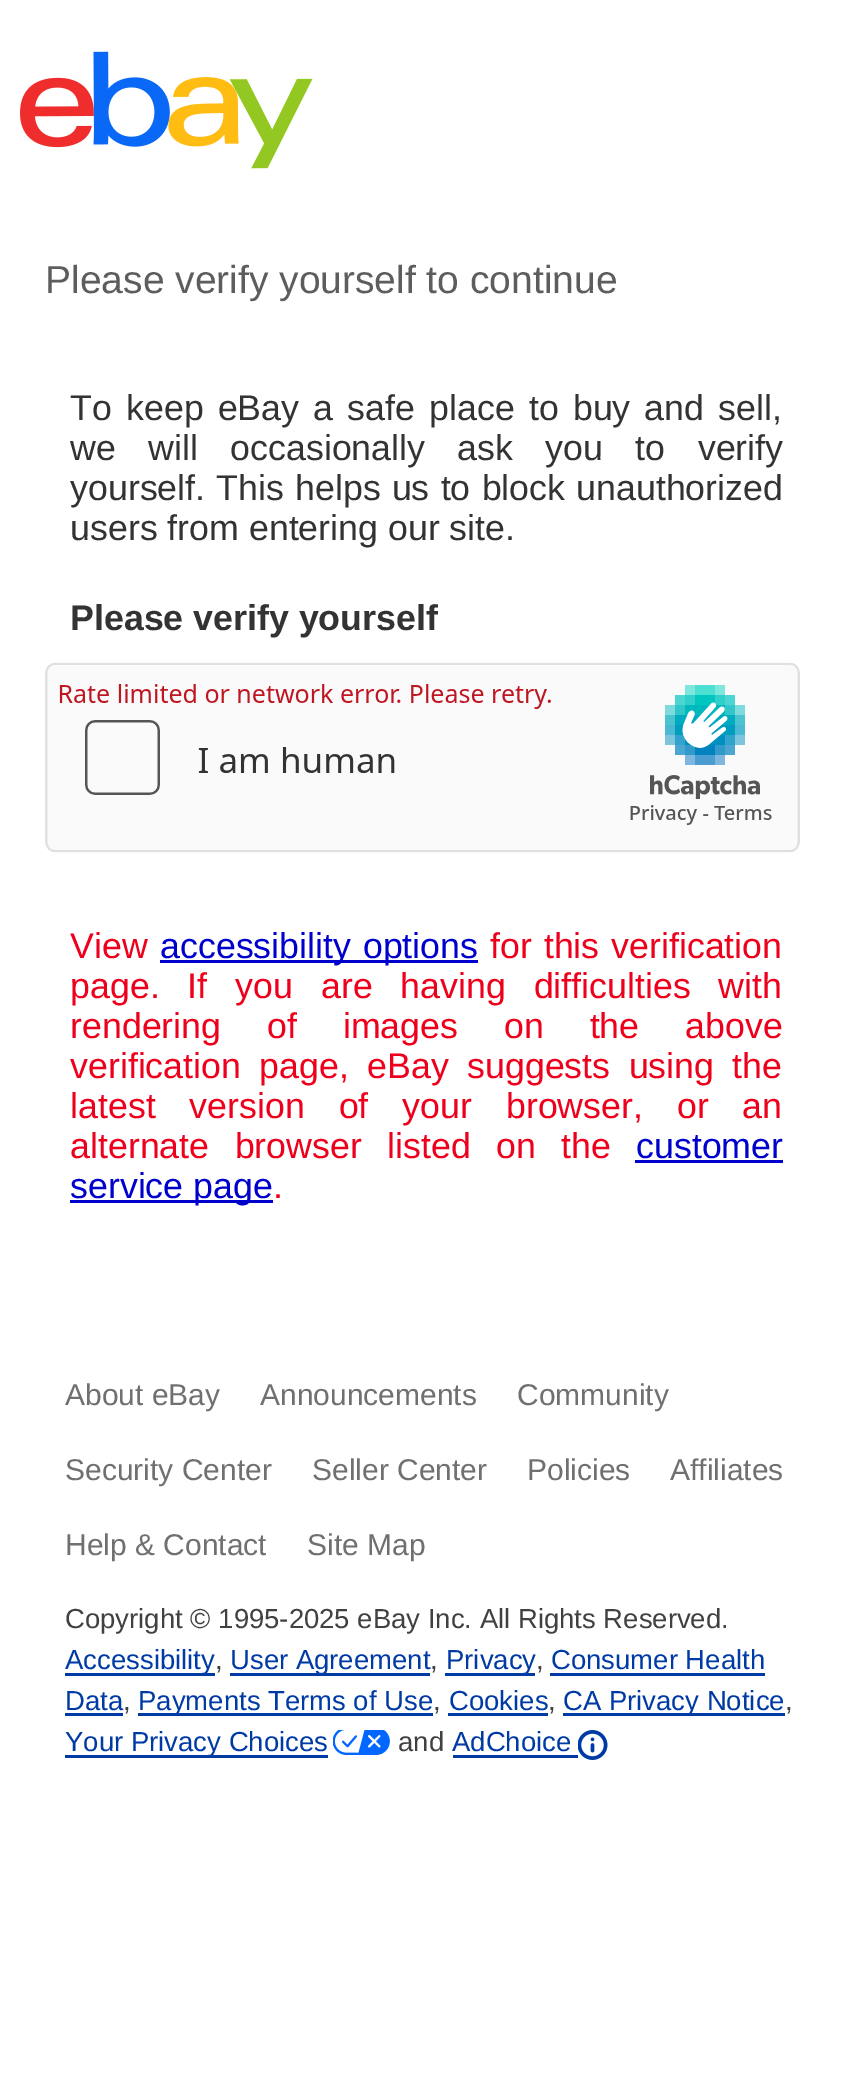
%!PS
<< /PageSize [851 2082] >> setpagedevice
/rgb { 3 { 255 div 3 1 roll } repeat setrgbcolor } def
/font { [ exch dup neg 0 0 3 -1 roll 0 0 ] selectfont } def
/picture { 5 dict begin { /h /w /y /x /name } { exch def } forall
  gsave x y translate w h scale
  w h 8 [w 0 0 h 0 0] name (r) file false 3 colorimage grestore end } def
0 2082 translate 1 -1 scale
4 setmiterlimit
255 255 255 rgb
0 0 851 2082 rectfill
(img/1.rgb) 20 51 293 118 picture
(img/2.rgb) 45 662 755 191 picture
[
  [160 960 318 3 0 0 204]
  [635 1160 148 3 0 0 204]
  [70 1200 203 3 0 0 204]
  [65 1673 150 3 0 58 165]
  [230 1673 200 3 0 58 165]
  [445 1673 90 3 0 58 165]
  [550 1673 215 3 0 58 165]
  [65 1713 58 3 0 58 165]
  [138 1713 295 3 0 58 165]
  [448 1713 100 3 0 58 165]
  [563 1713 222 3 0 58 165]
  [65 1755 263 3 0 58 165]
] { aload pop rgb rectfill } forall
(img/3.rgb) 333 1730 57 25 picture
453 1755 125 3 rectfill
(img/4.rgb) 578 1730 30 30 picture
/LiberationSans-Regular 39 font
93 93 93 rgb
45 293 moveto (Please verify yourself to continue) show
/LiberationSans-Regular 35.75 font
51 51 51 rgb
70 420 moveto 4.25 0 32 (To keep eBay a safe place to buy and sell,) widthshow
70 460 moveto 22.5 0 32 (we will occasionally ask you to verify) widthshow
70 500 moveto 1.25 0 32 (yourself. This helps us to block unauthorized) widthshow
70 540 moveto (users from entering our site.) show
/LiberationSans-Bold 35.75 font
70 630 moveto (Please verify yourself) show
/LiberationSans-Regular 35.75 font
238 0 28 rgb
70 958 moveto (View) show
0 0 204 rgb
160 958 moveto 2 0 32 (accessibility options) widthshow
238 0 28 rgb
490 958 moveto 2 0 32 (for this verification) widthshow
70 998 moveto 18 0 32 (page. If you are having difficulties with) widthshow
70 1038 moveto 36 0 32 (rendering of images on the above) widthshow
70 1078 moveto 8.5 0 32 (verification page, eBay suggests using the) widthshow
70 1118 moveto 24 0 32 (latest version of your browser, or an) widthshow
70 1158 moveto 15.5 0 32 (alternate browser listed on the) widthshow
0 0 204 rgb
636 1158 moveto (customer) show
70 1198 moveto (service page) show
238 0 28 rgb
273 1198 moveto (.) show
/LiberationSans-Regular 30 font
112 112 112 rgb
[
  [(About eBay) 65 1405]
  [(Announcements) 260 1405]
  [(Community) 517 1405]
  [(Security Center) 65 1480]
  [(Seller Center) 312 1480]
  [(Policies) 527 1480]
  [(Affiliates) 670 1480]
  [(Help & Contact) 65 1555]
  [(Site Map) 307 1555]
] { aload pop moveto show } forall
/LiberationSans-Regular 27.5 font
65 65 63 rgb
65 1628 moveto (Copyright © 1995-2025 eBay Inc. All Rights Reserved.) show
0 58 165 rgb
65 1669 moveto (Accessibility) show
65 65 63 rgb
215 1669 moveto (,) show
0 58 165 rgb
230 1669 moveto (User Agreement) show
65 65 63 rgb
430 1669 moveto (,) show
0 58 165 rgb
446 1669 moveto (Privacy) show
65 65 63 rgb
536 1669 moveto (,) show
0 58 165 rgb
551 1669 moveto (Consumer Health) show
65 1710 moveto (Data) show
65 65 63 rgb
123 1710 moveto (,) show
0 58 165 rgb
138 1710 moveto (Payments Terms of Use) show
65 65 63 rgb
433 1710 moveto (,) show
0 58 165 rgb
449 1710 moveto (Cookies) show
65 65 63 rgb
548 1710 moveto (,) show
0 58 165 rgb
563 1710 moveto (CA Privacy Notice) show
65 65 63 rgb
785 1710 moveto (,) show
0 58 165 rgb
65 1751 moveto (Your Privacy Choices) show
65 65 63 rgb
398 1751 moveto (and) show
0 58 165 rgb
452 1751 moveto (AdChoice) show
showpage
